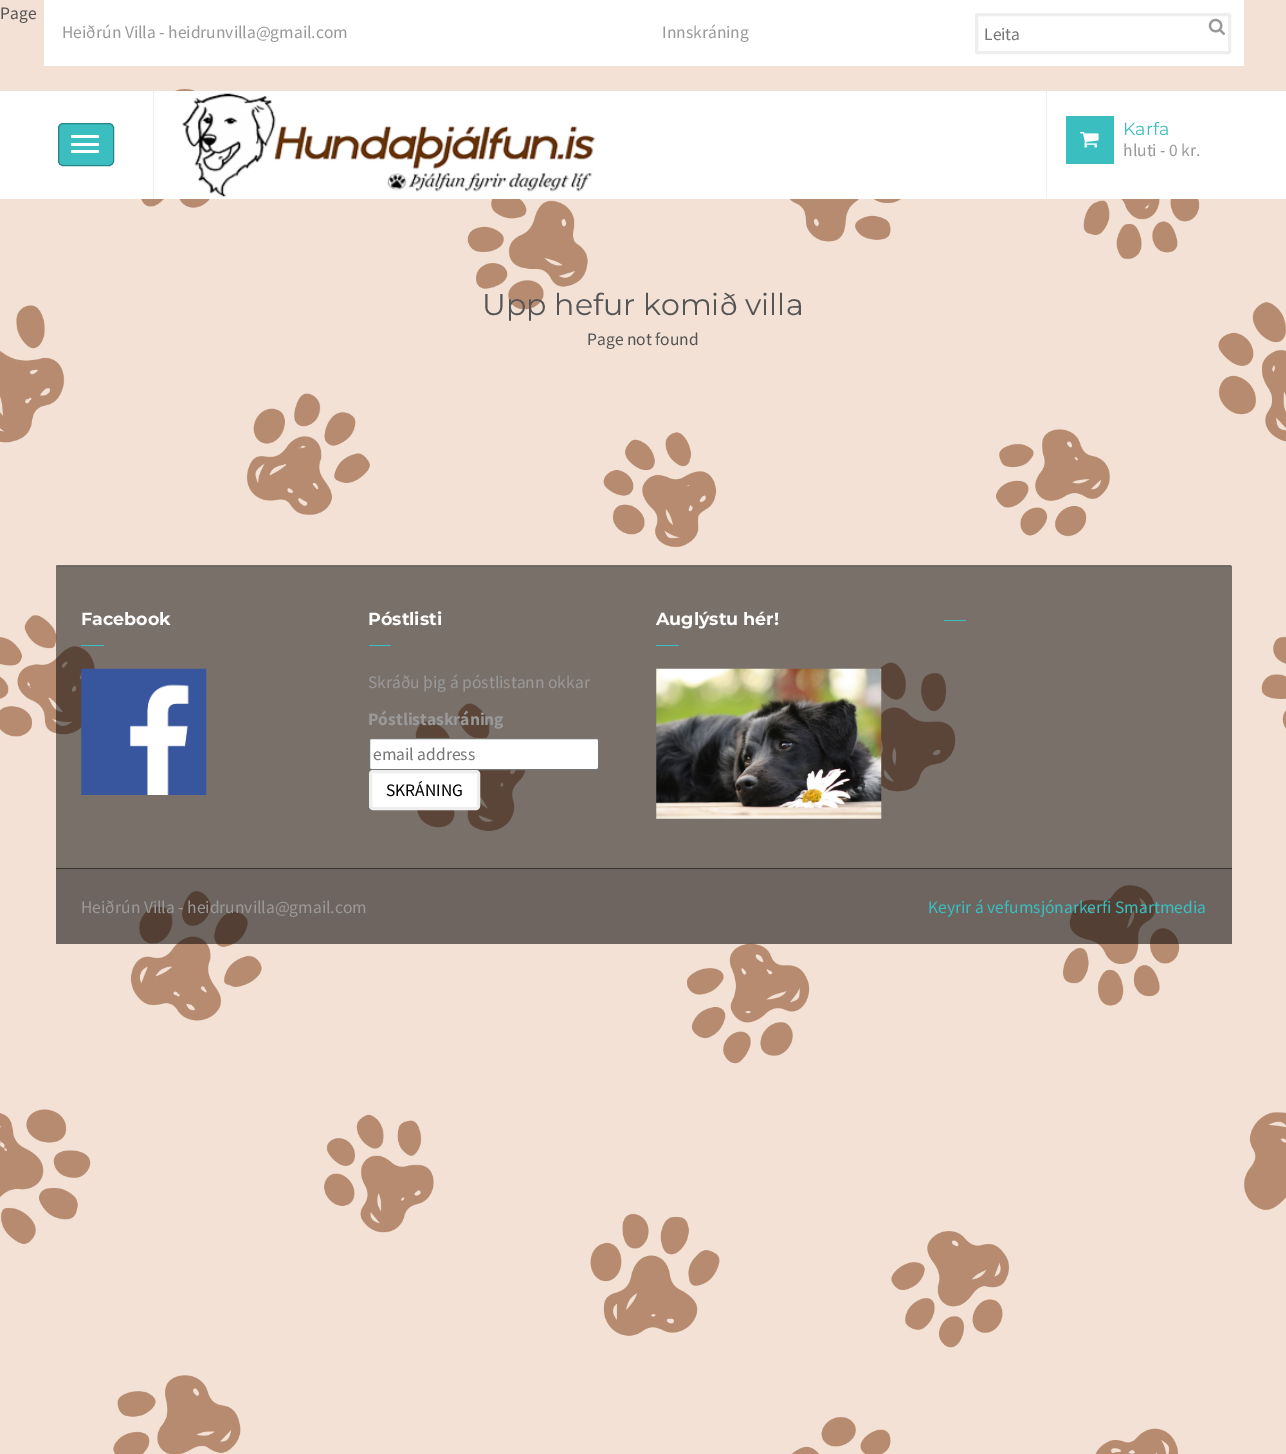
%!PS
<< /PageSize [1286 1454] /PageUsesTransparency true >> setpagedevice
/rgb { 3 { 255 div 3 1 roll } repeat setrgbcolor } def
/font { [ exch dup neg 0 0 3 -1 roll 0 0 ] selectfont } def
/alpha { dup .setfillconstantalpha .setstrokeconstantalpha } def
/roundrect { 5 dict begin { /r /h /w /y /x } { exch def } forall
  x r add y moveto x w add y 2 copy h add r arct x w add y h add x 1 index r arct
  x y h add x y r arct x y 2 copy exch w add exch r arct closepath end } def
/picture { 5 dict begin { /h /w /y /x /name } { exch def } forall
  gsave x y translate w h scale
  w h 8 [w 0 0 h 0 0] name (r) file false 3 colorimage grestore end } def
0 .pushpdf14devicefilter
0 1454 translate 1 -1 scale
4 setmiterlimit
255 255 255 rgb
0 0 1286 1454 rectfill
(img/1.rgb) 0 0 1286 1454 picture
44 0 1200 66 rectfill
238 238 238 rgb
3 setlinewidth
976.5 14.5 253 38 1 roundrect stroke
(img/2.rgb) 1208 18 17 17 picture
255 255 255 rgb
0 91 1286 108 rectfill
58 190 192 rgb
58.5 123.5 55 42 4.5 roundrect gsave fill grestore
40 132 133 rgb
1 setlinewidth
stroke
255 255 255 rgb
71 135 28 3 1.5 roundrect fill
71 143 28 3 1.5 roundrect fill
71 150 28 3 1.5 roundrect fill
238 238 238 rgb
153 91 1 108 rectfill
(img/3.rgb) 182 93 414 104 picture
1046 91 1 108 rectfill
58 190 192 rgb
1066 116 48 48 rectfill
(img/4.rgb) 1080 131 19 17 picture
(img/5.rgb) 56 565 1176 2 picture
0.5 alpha
0 0 0 rgb
56 566 1176 303 rectfill
1 alpha
58 190 192 rgb
81 645 23 1 rectfill
(img/6.rgb) 81 668 126 127 picture
369 645 22 1 rectfill
255 255 255 rgb
369.5 738.5 229 31 2 roundrect gsave fill grestore
118 118 118 rgb
stroke
255 255 255 rgb
370.5 771.5 108 37 2.5 roundrect gsave fill grestore
238 238 238 rgb
3 setlinewidth
stroke
58 190 192 rgb
656 645 23 1 rectfill
(img/7.rgb) 656 668 226 151 picture
944 620 22 1 rectfill
0.55 alpha
0 0 0 rgb
56 868 1176 76 rectfill
/SourceSansPro-Regular 17.5 font
1 alpha
85 85 85 rgb
0 19 moveto (Page) show
153 153 153 rgb
62 38 moveto (Heiðrún Villa - heidrunvilla@gmail.com) show
662 38 moveto (Innskráning) show
117 117 117 rgb
984 40 moveto (Leita) show
/Montserrat-Regular 17.5 font
58 190 192 rgb
1123 135 moveto (Karfa) show
/SourceSansPro-Regular 17.5 font
153 153 153 rgb
1123 156 moveto (hluti - 0 kr.) show
/Montserrat-Regular 30 font
85 85 85 rgb
482 315 moveto (Upp hefur komið villa) show
/SourceSansPro-Regular 17.5 font
587 345 moveto (Page not found) show
/Montserrat-Bold 17.5 font
255 255 255 rgb
81 625 moveto (Facebook) show
368 625 moveto (Póstlisti) show
/SourceSansPro-Regular 17.5 font
153 153 153 rgb
368 688 moveto (Skráðu þig á póstlistann okkar) show
/SourceSansPro-Bold 17.5 font
368 725 moveto (Póstlistaskráning) show
/SourceSansPro-Regular 17.5 font
117 117 117 rgb
373 760 moveto (email address) show
0 0 0 rgb
386 796 moveto (SKRÁNING) show
/Montserrat-Bold 17.5 font
255 255 255 rgb
656 625 moveto (Auglýstu hér!) show
/SourceSansPro-Regular 17.5 font
153 153 153 rgb
81 913 moveto (Heiðrún Villa - heidrunvilla@gmail.com) show
58 190 192 rgb
928 913 moveto (Keyrir á vefumsjónarkerfi Smartmedia) show
.poppdf14devicefilter showpage
